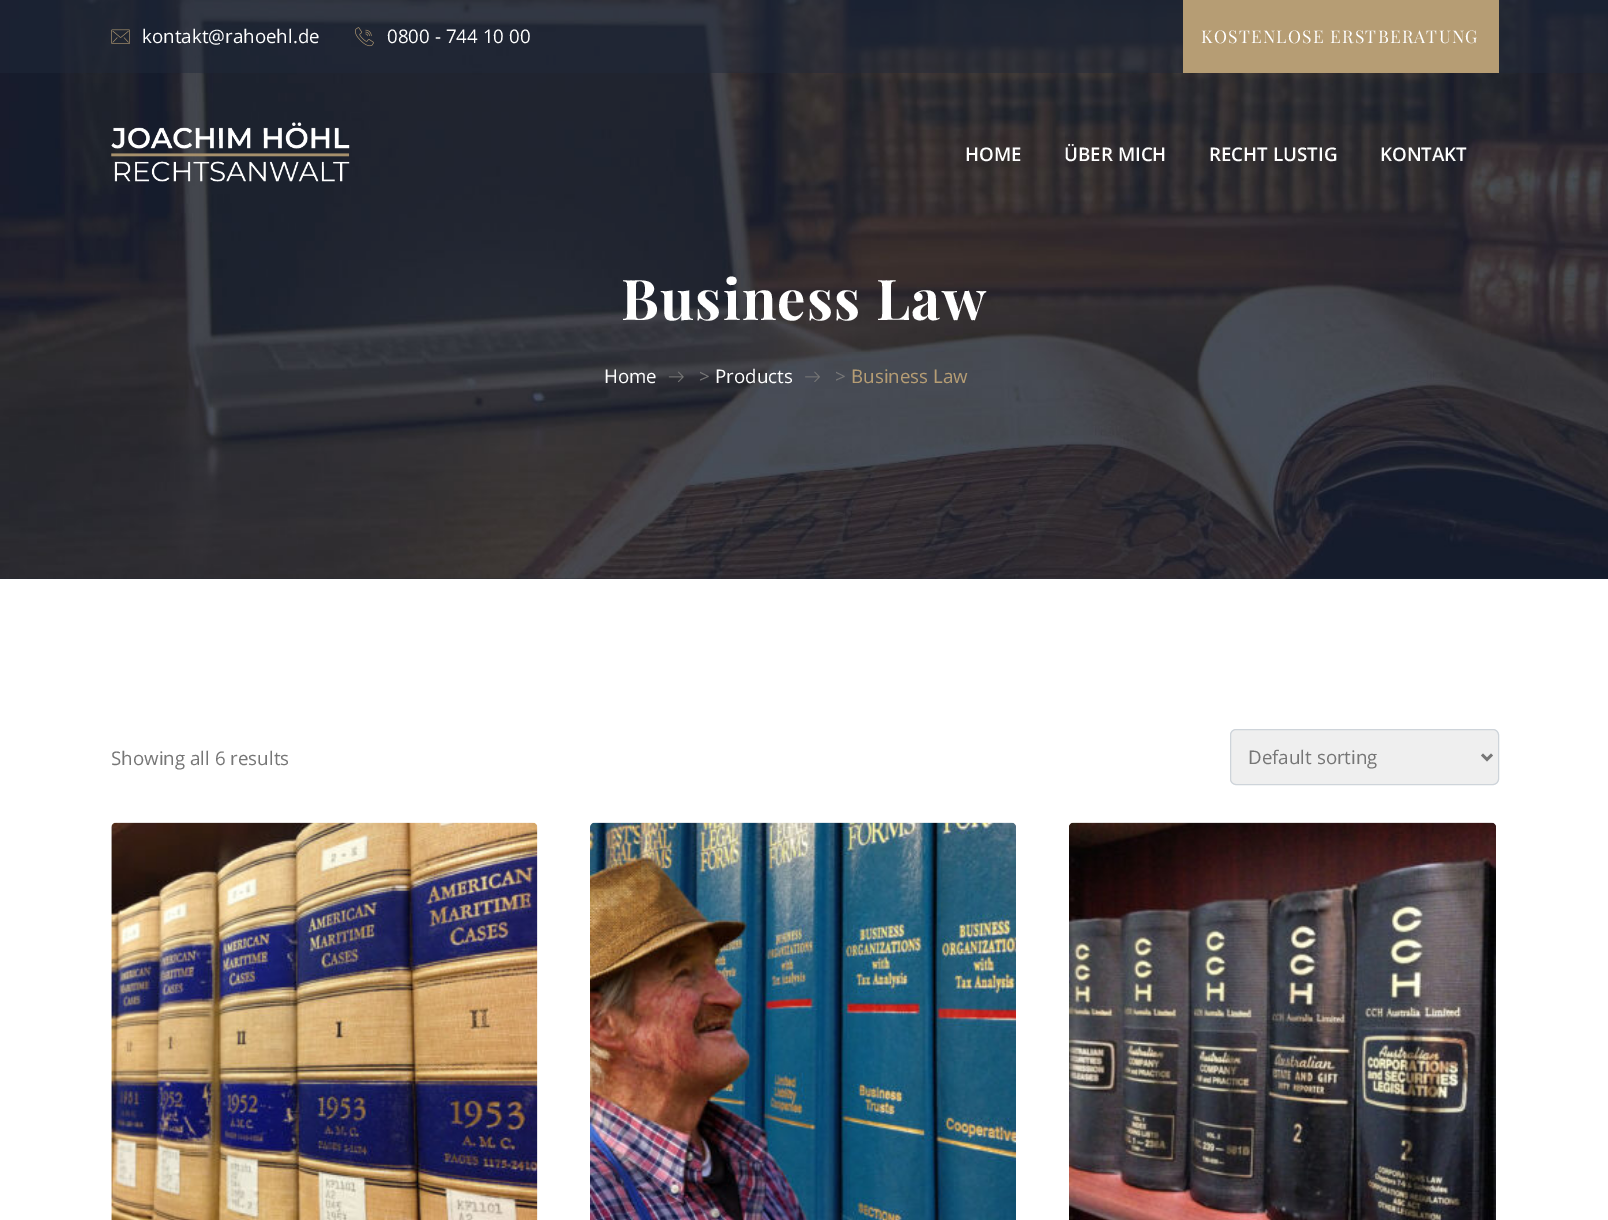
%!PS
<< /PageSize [1608 1220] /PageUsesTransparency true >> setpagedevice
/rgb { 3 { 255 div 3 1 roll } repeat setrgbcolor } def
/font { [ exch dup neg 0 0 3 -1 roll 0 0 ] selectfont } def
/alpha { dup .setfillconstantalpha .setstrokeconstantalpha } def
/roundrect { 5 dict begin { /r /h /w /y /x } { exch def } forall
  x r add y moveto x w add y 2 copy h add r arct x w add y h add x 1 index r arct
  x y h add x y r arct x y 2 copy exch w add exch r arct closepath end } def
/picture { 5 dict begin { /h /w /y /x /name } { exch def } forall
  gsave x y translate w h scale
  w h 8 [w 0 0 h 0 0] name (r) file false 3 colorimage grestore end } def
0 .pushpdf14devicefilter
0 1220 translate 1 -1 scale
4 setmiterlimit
255 255 255 rgb
0 0 1608 1220 rectfill
(img/4.rgb) 0 0 1608 579 picture
0.47 alpha
31 40 57 rgb
0 0 1608 73 rectfill
1 alpha
(img/1.rgb) 111 29 19 15 picture
(img/2.rgb) 355 27 19 20 picture
182 157 116 rgb
1183 0 316 73 rectfill
(img/3.rgb) 111 122 239 60 picture
(img/5.rgb) 668 371 16 12 picture
(img/6.rgb) 805 371 15 11 picture
239 239 239 rgb
1230.5 729.5 268 55 5.5 roundrect gsave fill grestore
206 212 218 rgb
stroke
118 118 118 rgb
2.5 setlinewidth
1482 754.5 moveto 1487 759.5 lineto 1492 754.5 lineto stroke
(img/7.rgb) 111 822 427 398 picture
(img/8.rgb) 590 822 426 398 picture
(img/9.rgb) 1069 822 427 398 picture
/OpenSans-Regular 18.75 font
255 255 255 rgb
142 43 moveto (kontakt@rahoehl.de) show
387 43 moveto (0800 - 744 10 00) show
/PlayfairDisplay-Regular 17.5 font
1201 43 moveto 1.25 0 (KOSTENLOSE ERSTBERATUNG) ashow
/OpenSans-SemiBold 18.75 font
[
  [(HOME) 965 161]
  [(ÜBER MICH) 1064 161]
  [(RECHT LUSTIG) 1209 161]
  [(KONTAKT) 1380 161]
] { aload pop moveto show } forall
/PlayfairDisplay-Bold 56.25 font
621 320 moveto 1.25 0 (Business Law) ashow
/OpenSans-Regular 18.75 font
604 383 moveto (Home) show
118 118 118 rgb
699 383 moveto (>) show
255 255 255 rgb
715 383 moveto (Products) show
118 118 118 rgb
835 383 moveto (>) show
182 157 116 rgb
851 383 moveto (Business Law) show
118 118 118 rgb
111 765 moveto (Showing all 6 results) show
1248 764 moveto (Default sorting) show
.poppdf14devicefilter showpage
